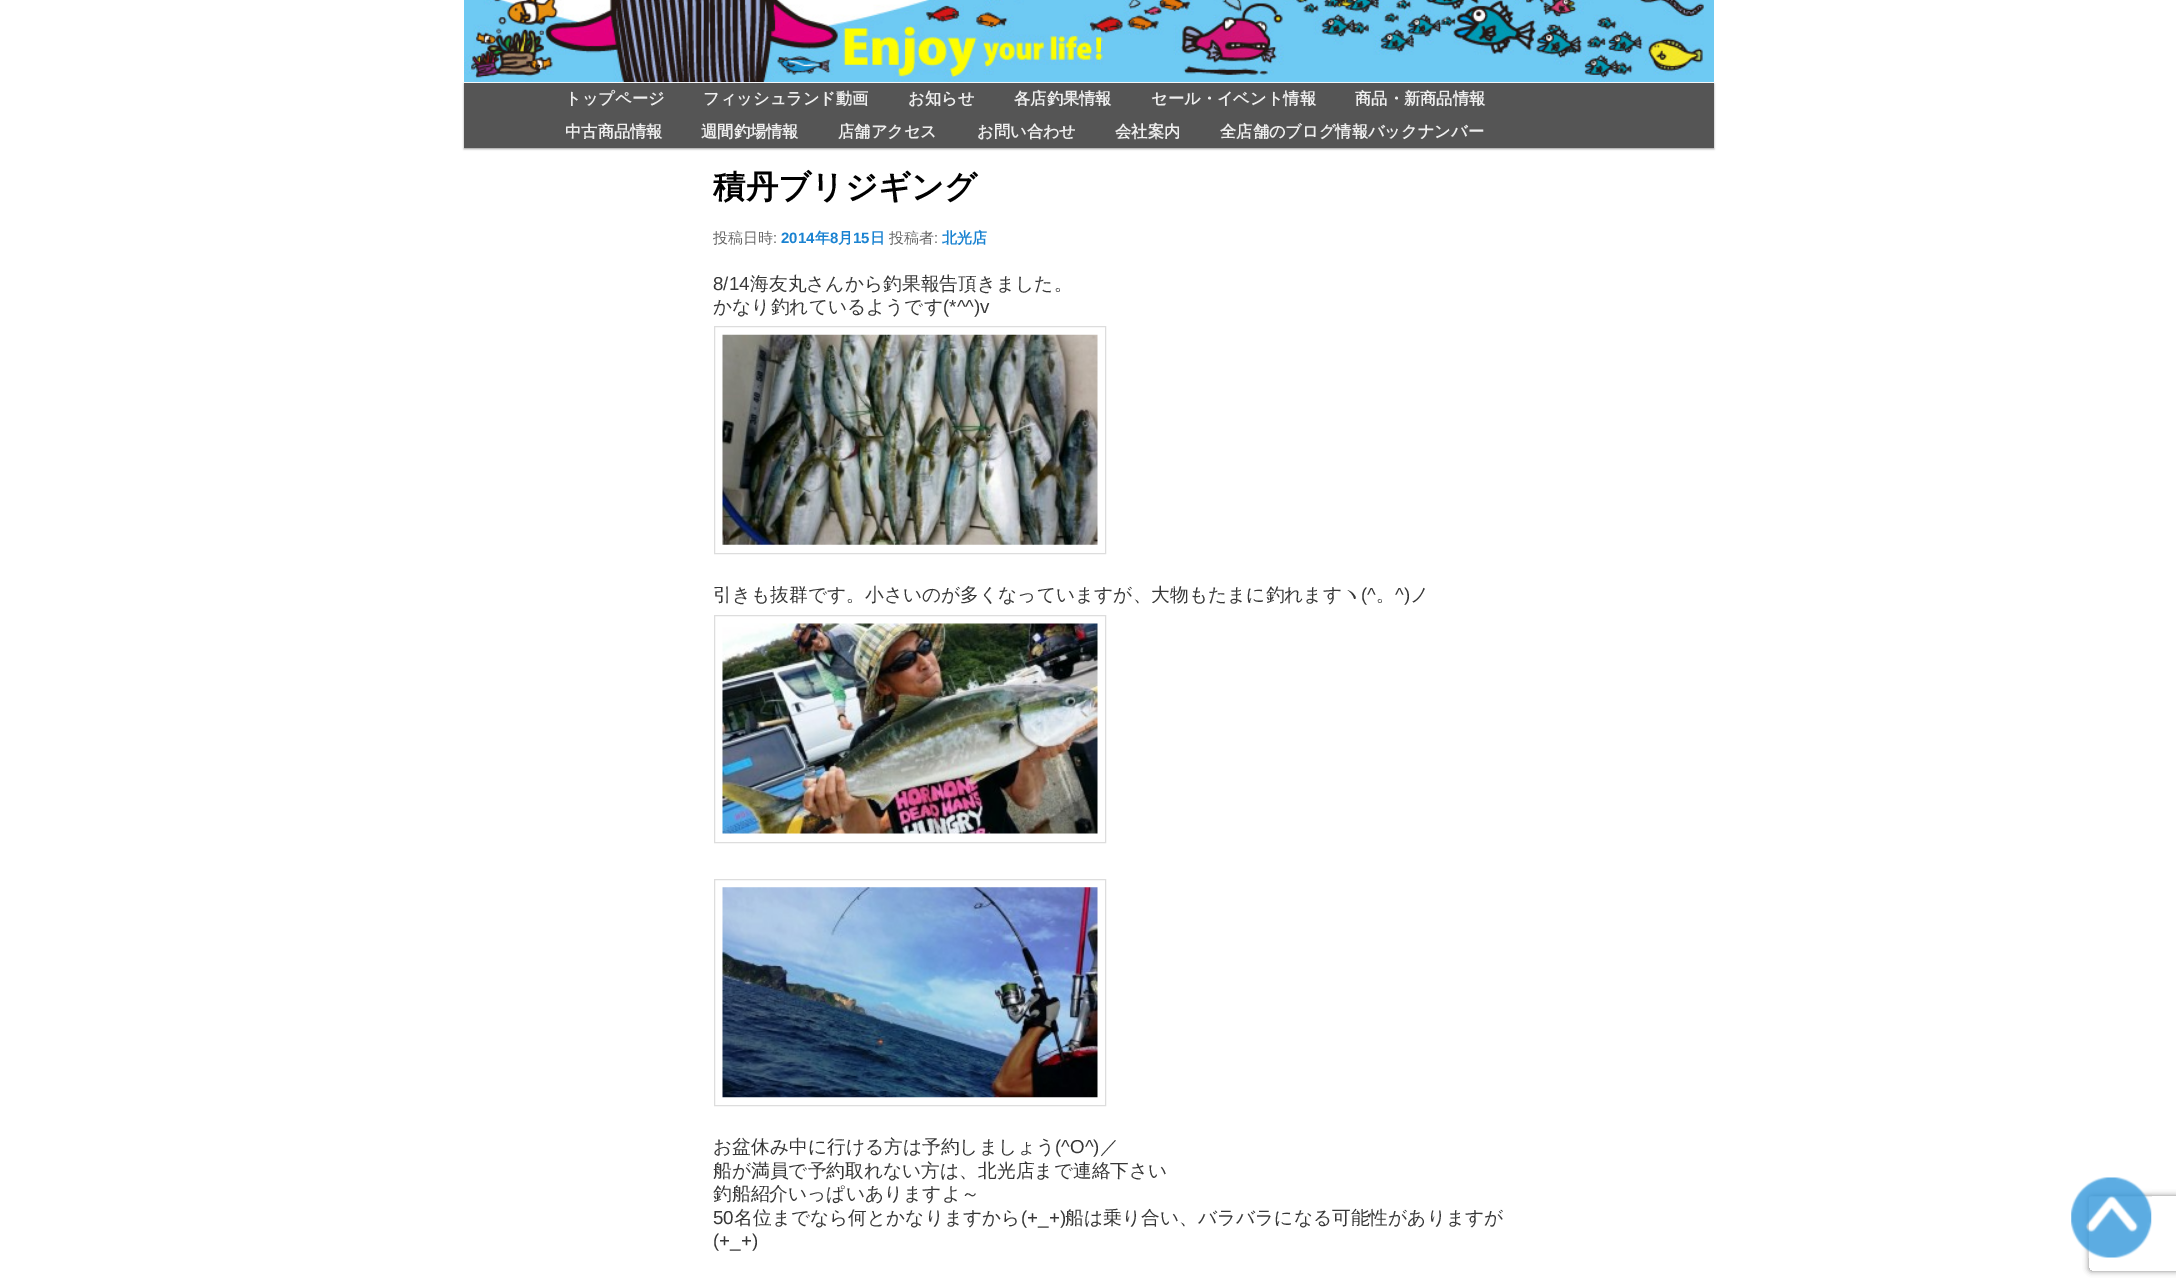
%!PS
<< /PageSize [2176 1288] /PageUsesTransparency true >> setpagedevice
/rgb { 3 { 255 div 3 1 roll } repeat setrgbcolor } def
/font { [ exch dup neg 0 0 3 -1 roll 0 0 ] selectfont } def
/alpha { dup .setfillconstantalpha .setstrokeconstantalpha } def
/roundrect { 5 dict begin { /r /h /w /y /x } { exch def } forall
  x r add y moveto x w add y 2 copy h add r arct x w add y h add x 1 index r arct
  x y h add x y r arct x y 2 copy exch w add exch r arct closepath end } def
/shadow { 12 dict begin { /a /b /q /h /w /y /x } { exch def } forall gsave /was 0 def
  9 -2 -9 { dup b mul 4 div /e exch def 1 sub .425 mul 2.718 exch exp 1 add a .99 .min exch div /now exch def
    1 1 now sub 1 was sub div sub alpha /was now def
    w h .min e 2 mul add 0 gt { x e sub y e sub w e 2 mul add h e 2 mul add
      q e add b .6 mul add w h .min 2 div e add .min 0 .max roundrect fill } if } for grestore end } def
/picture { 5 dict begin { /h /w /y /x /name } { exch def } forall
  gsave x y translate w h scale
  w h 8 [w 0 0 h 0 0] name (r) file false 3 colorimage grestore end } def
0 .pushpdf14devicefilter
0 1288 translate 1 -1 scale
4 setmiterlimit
255 255 255 rgb
0 0 2176 1288 rectfill
0 0 0 rgb
464 84 1250 65 0 1 0.4 shadow
(img/1.rgb) 464 0 1250 82 picture
85 85 85 rgb
464 83 1250 65 rectfill
221 221 221 rgb
714.5 326.5 391 227 rectstroke
(img/2.rgb) 722 334 376 211 picture
714.5 615.5 391 227 rectstroke
(img/3.rgb) 722 623 376 211 picture
714.5 879.5 391 226 rectstroke
(img/4.rgb) 722 887 376 211 picture
gsave
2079 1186 moveto 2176 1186 lineto 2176 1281 lineto 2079 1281 lineto closepath 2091.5 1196 moveto 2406.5 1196 lineto 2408 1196 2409 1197 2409 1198.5 curveto 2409 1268.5 lineto 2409 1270 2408 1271 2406.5 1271 curveto 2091.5 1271 lineto 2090 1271 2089 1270 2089 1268.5 curveto 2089 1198.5 lineto 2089 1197 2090 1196 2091.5 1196 curveto closepath eoclip newpath
128 128 128 rgb
2089 1196 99 75 2.5 3 1 shadow
grestore
(img/5.rgb) 2071 1177 81 81 picture
/WenQuanYiZenHei-Bold 16.25 font
238 238 238 rgb
[
  [(トップページ) 565 104]
  [(フィッシュランド動画) 703 104]
  [(お知らせ) 908 104]
  [(各店釣果情報) 1014 104]
  [(セール・イベント情報) 1151 104]
  [(商品・新商品情報) 1355 104]
  [(中古商品情報) 565 137]
  [(週間釣場情報) 701 137]
  [(店舗アクセス) 838 137]
  [(お問い合わせ) 977 137]
  [(会社案内) 1115 137]
  [(全店舗のブログ情報バックナンバー) 1220 137]
] { aload pop moveto show } forall
/WenQuanYiZenHei-Bold 32.5 font
0 0 0 rgb
713 198 moveto (積丹ブリジギング) show
/WenQuanYiZenHei-Medium 15 font
102 102 102 rgb
713 243 moveto (投稿日時) show
/LiberationSans-Regular 15 font
773 243 moveto (:) show
/LiberationSans-Bold 15 font
25 130 209 rgb
781 243 moveto (2014) show
/WenQuanYiZenHei-Bold 15 font
815 243 moveto (年) show
/LiberationSans-Bold 15 font
830 243 moveto (8) show
/WenQuanYiZenHei-Bold 15 font
838 243 moveto (月) show
/LiberationSans-Bold 15 font
853 243 moveto (15) show
/WenQuanYiZenHei-Bold 15 font
870 243 moveto (日) show
/WenQuanYiZenHei-Medium 15 font
102 102 102 rgb
889 243 moveto (投稿者) show
/LiberationSans-Regular 15 font
934 243 moveto (:) show
/WenQuanYiZenHei-Bold 15 font
25 130 209 rgb
942 243 moveto (北光店) show
/LiberationSans-Regular 18.75 font
55 55 55 rgb
713 290 moveto (8/14) show
/WenQuanYiZenHei-Medium 18.75 font
750 290 moveto (海友丸さんから釣果報告頂きました。) show
713 313 moveto (かなり釣れているようです) show
/LiberationSans-Regular 18.75 font
943 313 moveto (\(*^^\)v) show
/WenQuanYiZenHei-Medium 18.75 font
713 601 moveto (引きも抜群です。小さいのが多くなっていますが、大物もたまに釣れますヽ) show
/LiberationSans-Regular 18.75 font
1361 601 moveto (\(^) show
/WenQuanYiZenHei-Medium 18.75 font
1376 601 moveto (。) show
/LiberationSans-Regular 18.75 font
1395 601 moveto (^\)) show
/WenQuanYiZenHei-Medium 18.75 font
1410 601 moveto (ノ) show
713 1153 moveto (お盆休み中に行ける方は予約しましょう) show
/LiberationSans-Regular 18.75 font
1055 1153 moveto (\(^O^\)) show
/WenQuanYiZenHei-Medium 18.75 font
[
  [(／) 1100 1153]
  [(船が満員で予約取れない方は、北光店まで連絡下さい) 713 1177]
  [(釣船紹介いっぱいありますよ～) 713 1200]
] { aload pop moveto show } forall
/LiberationSans-Regular 18.75 font
713 1224 moveto (50) show
/WenQuanYiZenHei-Medium 18.75 font
734 1224 moveto (名位までなら何とかなりますから) show
/LiberationSans-Regular 18.75 font
1021 1224 moveto (\(+_+\)) show
/WenQuanYiZenHei-Medium 18.75 font
1065 1224 moveto (船は乗り合い、バラバラになる可能性がありますが) show
/LiberationSans-Regular 18.75 font
713 1247 moveto (\(+_+\)) show
.poppdf14devicefilter showpage
